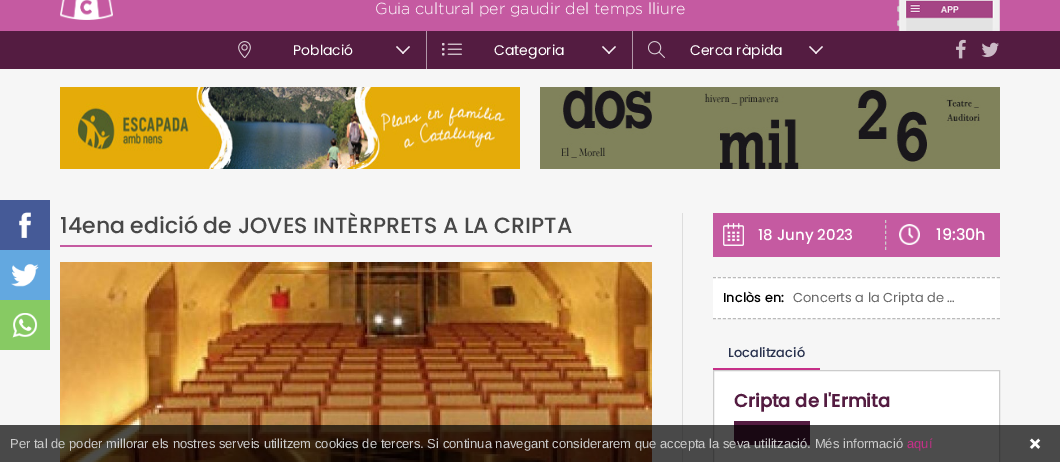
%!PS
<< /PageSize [1060 462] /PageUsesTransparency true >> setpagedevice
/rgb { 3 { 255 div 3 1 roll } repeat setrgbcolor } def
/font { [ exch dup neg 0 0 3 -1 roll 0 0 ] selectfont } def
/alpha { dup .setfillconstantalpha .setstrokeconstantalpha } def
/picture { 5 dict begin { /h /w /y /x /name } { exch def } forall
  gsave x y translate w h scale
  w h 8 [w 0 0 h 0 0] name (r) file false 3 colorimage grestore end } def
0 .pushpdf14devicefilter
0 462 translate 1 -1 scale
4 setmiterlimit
246 246 246 rgb
0 0 1060 462 rectfill
197 90 161 rgb
0 0 1060 31 rectfill
(img/1.rgb) 60 0 53 20 picture
(img/2.rgb) 897 0 103 31 picture
84 28 65 rgb
0 31 1060 38 rectfill
(img/3.rgb) 956 39 10 20 picture
(img/4.rgb) 981 42 18 15 picture
177 151 168 rgb
426 31 1 38 rectfill
(img/5.rgb) 238 41 13 17 picture
246 237 243 rgb
397 46 moveto 404 53 lineto 403 54 lineto 396 47 lineto closepath fill
402 53 moveto 409 46 lineto 410 47 lineto 403 54 lineto closepath fill
177 151 168 rgb
632 31 1 38 rectfill
(img/6.rgb) 442 43 20 13 picture
246 237 243 rgb
603 46 moveto 610 53 lineto 609 54 lineto 602 47 lineto closepath fill
608 53 moveto 615 46 lineto 616 47 lineto 609 54 lineto closepath fill
(img/7.rgb) 648 41 17 17 picture
810 46 moveto 817 53 lineto 816 54 lineto 809 47 lineto closepath fill
815 53 moveto 822 46 lineto 823 47 lineto 816 54 lineto closepath fill
69 90 151 rgb
0 200 50 50 rectfill
(img/8.rgb) 19 212 12 26 picture
99 168 224 rgb
0 250 50 50 rectfill
(img/9.rgb) 11 264 28 23 picture
135 202 99 rgb
0 300 50 50 rectfill
(img/10.rgb) 12 313 26 25 picture
(img/11.rgb) 60 87 460 82 picture
(img/12.rgb) 540 87 460 82 picture
221 221 221 rgb
682 213 1 249 rectfill
197 90 161 rgb
60 245 592 2 rectfill
(img/13.rgb) 60 262 592 200 picture
713 213 287 44 rectfill
(img/14.rgb) 723 223 21 23 picture
(img/15.rgb) 899 224 21 21 picture
204 204 204 rgb
[3 2.4] 0 setdash
885.5 220 moveto 885.5 250 lineto stroke
255 255 255 rgb
713 277 287 42 rectfill
187 187 187 rgb
[3 1.98] 0 setdash
713 277.5 moveto 1000 277.5 lineto stroke
713 318.5 moveto 1000 318.5 lineto stroke
198 47 136 rgb
713 368 107 2 rectfill
255 255 255 rgb
713.5 370.5 moveto 999.5 370.5 lineto 999.5 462.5 lineto 713.5 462.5 lineto closepath gsave fill grestore
204 204 204 rgb
[] 0 setdash
stroke
84 28 65 rgb
734 421 76 24 rectfill
0.7 alpha
0 0 0 rgb
0 425 1060 37 rectfill
1 alpha
(img/16.rgb) 1029 438 12 11 picture
/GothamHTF-Light 16 font
255 255 255 rgb
375 14 moveto (Guia cultural per gaudir del temps lliure) show
/Poppins-Regular 14 font
[
  [(Població) 293 55]
  [(Categoria) 494 55]
  [(Cerca ràpida) 690 55]
] { aload pop moveto show } forall
/Poppins-Medium 22 font
71 71 71 rgb
60 233 moveto (14ena edició de JOVES INTÈRPRETS A LA CRIPTA) show
/Poppins-Medium 15 font
255 255 255 rgb
758 240 moveto (18 Juny 2023) show
/Poppins-Medium 16 font
936 240 moveto (19:30h) show
/Poppins-Medium 13 font
0 0 0 rgb
723 302 moveto (Inclòs en:) show
/Poppins-Regular 13 font
102 102 102 rgb
793 302 moveto (Concerts a la Cripta de …) show
/Poppins-Medium 13 font
41 50 78 rgb
728 357 moveto (Localització) show
/Poppins-Bold 18 font
84 28 65 rgb
734 407 moveto (Cripta de l'Ermita) show
/LiberationSans-Regular 13 font
204 204 204 rgb
10 448 moveto (Per tal de poder millorar els nostres serveis utilitzem cookies de tercers. Si continua navegant considerarem que accepta la seva utilització. Més informació) show
198 47 136 rgb
907 448 moveto (aquí) show
.poppdf14devicefilter showpage
